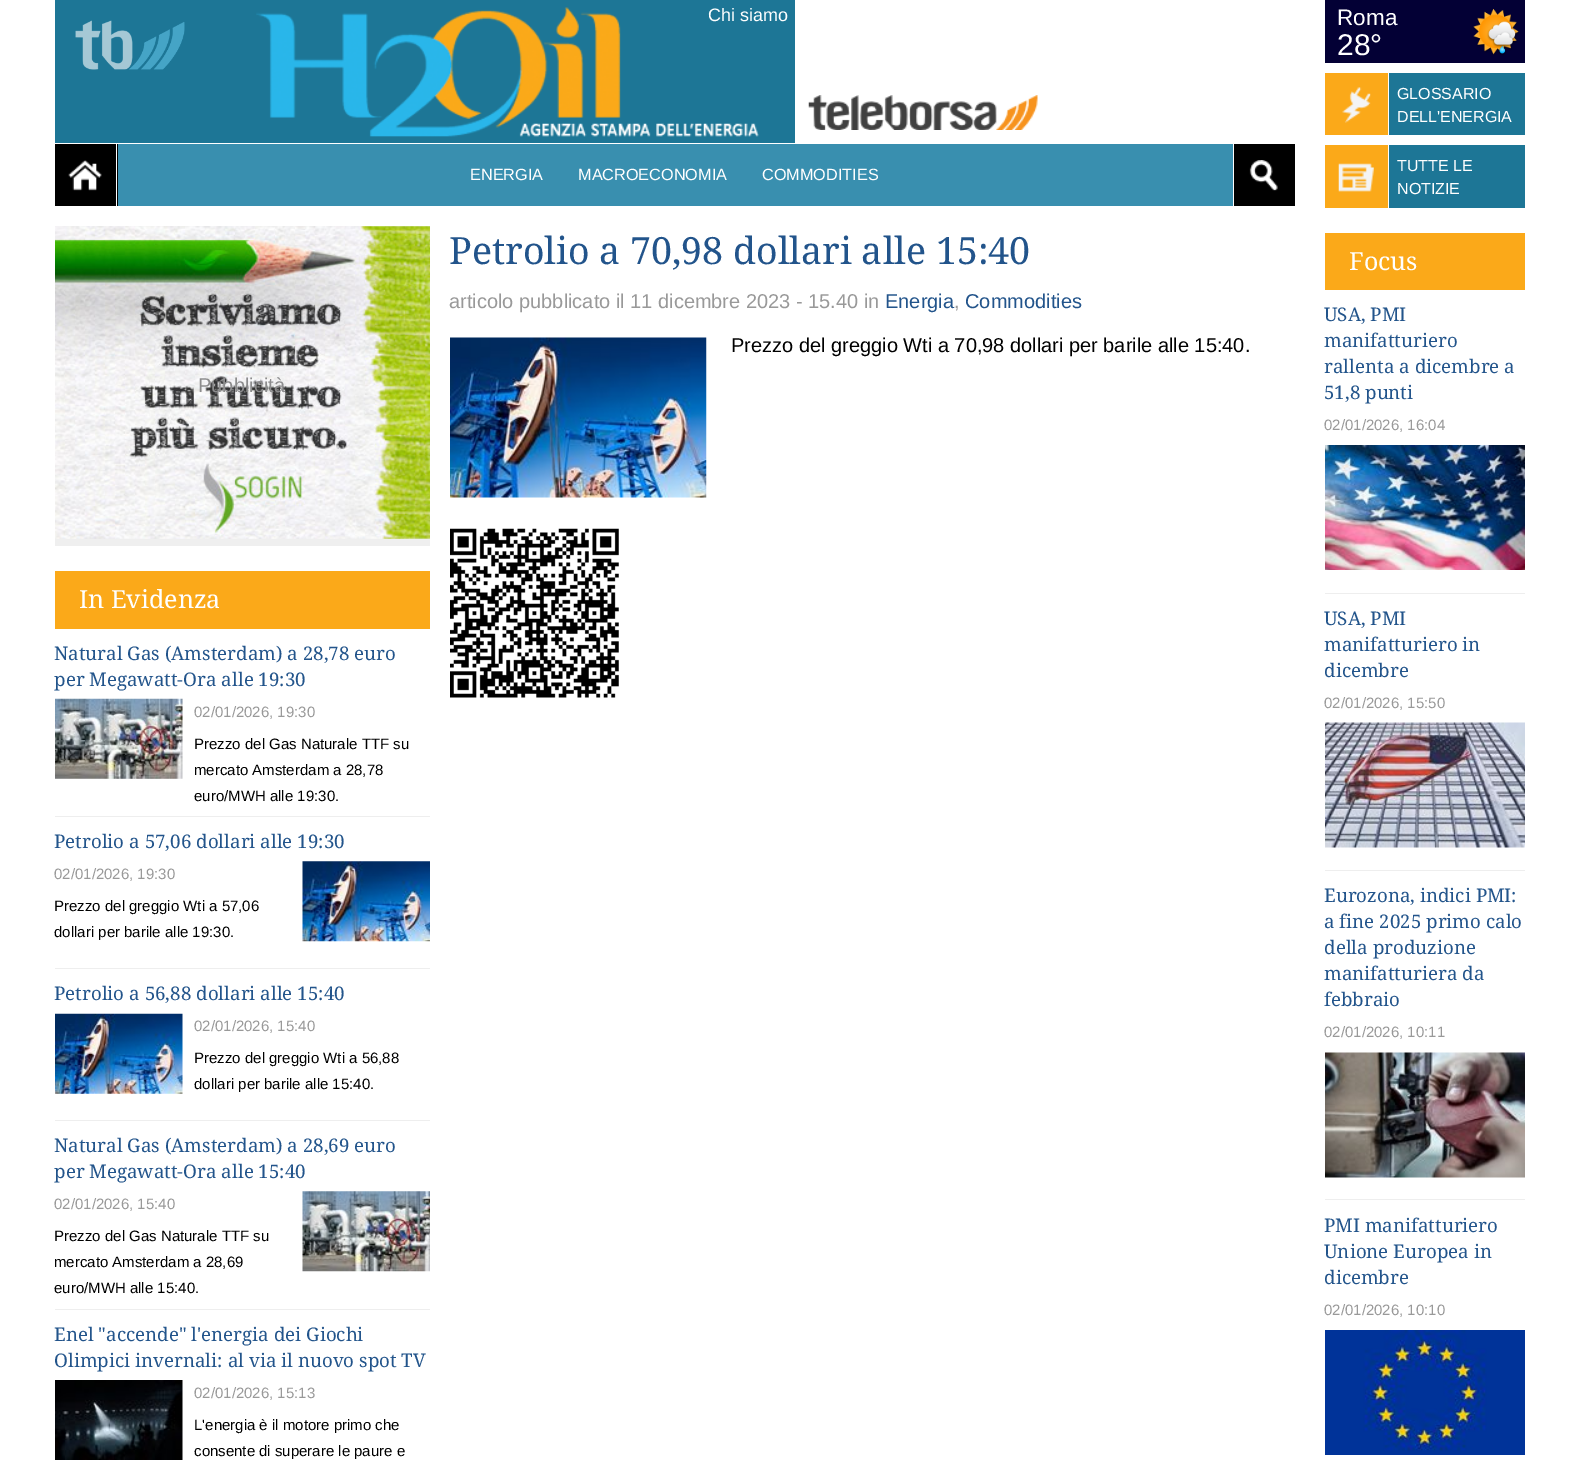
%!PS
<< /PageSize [1583 1464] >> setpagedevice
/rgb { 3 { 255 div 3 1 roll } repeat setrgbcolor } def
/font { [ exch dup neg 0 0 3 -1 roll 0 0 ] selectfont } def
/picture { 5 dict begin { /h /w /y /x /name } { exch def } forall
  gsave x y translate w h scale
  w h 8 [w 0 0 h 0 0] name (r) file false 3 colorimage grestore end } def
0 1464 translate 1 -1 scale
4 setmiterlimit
255 255 255 rgb
0 0 1583 1464 rectfill
29 118 150 rgb
55 0 740 143 rectfill
(img/1.rgb) 75 20 110 50 picture
(img/2.rgb) 256 7 503 130 picture
(img/3.rgb) 808 95 230 35 picture
57 143 175 rgb
118 144 1115 62 rectfill
0 0 0 rgb
55 144 63 62 rectfill
(img/4.rgb) 68 160 34 31 picture
255 255 255 rgb
116 144 1 62 rectfill
0 0 0 rgb
1234 144 61 62 rectfill
(img/5.rgb) 1249 160 29 31 picture
(img/6.rgb) 450 337 257 161 picture
(img/7.rgb) 450 528 169 170 picture
239 239 239 rgb
55 226 375 320 rectfill
(img/8.rgb) 55 226 375 313 picture
251 169 25 rgb
55 571 375 58 rectfill
238 238 238 rgb
55 816 375 1 rectfill
(img/9.rgb) 55 698 128 81 picture
55 968 375 1 rectfill
(img/10.rgb) 302 861 128 81 picture
55 1120 375 1 rectfill
(img/11.rgb) 55 1013 128 81 picture
55 1309 375 1 rectfill
(img/12.rgb) 302 1191 128 81 picture
(img/13.rgb) 55 1380 128 80 picture
3 0 53 rgb
1325 0 200 63 rectfill
(img/14.rgb) 1473 9 46 47 picture
251 169 25 rgb
1325 73 63 62 rectfill
(img/15.rgb) 1342 87 29 36 picture
29 118 150 rgb
1389 73 136 62 rectfill
251 169 25 rgb
1325 145 63 63 rectfill
(img/16.rgb) 1338 163 36 29 picture
[
  [1389 145 136 63 29 118 150]
  [1325 233 200 57 251 169 25]
  [1325 593 200 1 238 238 238]
] { aload pop rgb rectfill } forall
(img/17.rgb) 1325 445 200 125 picture
1325 870 200 1 rectfill
(img/18.rgb) 1325 722 200 126 picture
1325 1199 200 1 rectfill
(img/19.rgb) 1325 1052 200 126 picture
(img/20.rgb) 1325 1330 200 125 picture
/LiberationSans-Regular 18 font
255 255 255 rgb
708 21 moveto (Chi siamo) show
/LiberationSans-Regular 16.25 font
[
  [(ENERGIA) 470 180]
  [(MACROECONOMIA) 578 180]
  [(COMMODITIES) 762 180]
] { aload pop moveto show } forall
/DroidSerif-Regular 37.5 font
34 84 139 rgb
449 264 moveto (Petrolio a 70,98 dollari alle 15:40) show
/LiberationSans-Regular 20 font
153 153 153 rgb
449 308 moveto (articolo pubblicato il 11 dicembre 2023 - 15.40 in) show
34 84 139 rgb
885 308 moveto (Energia) show
153 153 153 rgb
954 308 moveto (,) show
34 84 139 rgb
965 308 moveto (Commodities) show
0 0 0 rgb
731 352 moveto (Prezzo del greggio Wti a 70,98 dollari per barile alle 15:40.) show
140 140 141 rgb
198 392 moveto (Pubblicità) show
/DroidSerif-Regular 25 font
255 255 255 rgb
79 608 moveto (In Evidenza) show
/DroidSerif-Regular 18.75 font
34 84 139 rgb
54 660 moveto (Natural Gas \(Amsterdam\) a 28,78 euro) show
54 686 moveto (per Megawatt-Ora alle 19:30) show
/LiberationSans-Regular 15 font
153 153 153 rgb
194 717 moveto (02/01/2026, 19:30) show
0 0 0 rgb
[
  [(Prezzo del Gas Naturale TTF su) 194 749]
  [(mercato Amsterdam a 28,78) 194 775]
  [(euro/MWH alle 19:30.) 194 801]
] { aload pop moveto show } forall
/DroidSerif-Regular 18.75 font
34 84 139 rgb
54 848 moveto (Petrolio a 57,06 dollari alle 19:30) show
/LiberationSans-Regular 15 font
153 153 153 rgb
54 879 moveto (02/01/2026, 19:30) show
0 0 0 rgb
54 911 moveto (Prezzo del greggio Wti a 57,06) show
54 937 moveto (dollari per barile alle 19:30.) show
/DroidSerif-Regular 18.75 font
34 84 139 rgb
54 1000 moveto (Petrolio a 56,88 dollari alle 15:40) show
/LiberationSans-Regular 15 font
153 153 153 rgb
194 1031 moveto (02/01/2026, 15:40) show
0 0 0 rgb
194 1063 moveto (Prezzo del greggio Wti a 56,88) show
194 1089 moveto (dollari per barile alle 15:40.) show
/DroidSerif-Regular 18.75 font
34 84 139 rgb
54 1152 moveto (Natural Gas \(Amsterdam\) a 28,69 euro) show
54 1178 moveto (per Megawatt-Ora alle 15:40) show
/LiberationSans-Regular 15 font
153 153 153 rgb
54 1209 moveto (02/01/2026, 15:40) show
0 0 0 rgb
[
  [(Prezzo del Gas Naturale TTF su) 54 1241]
  [(mercato Amsterdam a 28,69) 54 1267]
  [(euro/MWH alle 15:40.) 54 1293]
] { aload pop moveto show } forall
/DroidSerif-Regular 18.75 font
34 84 139 rgb
54 1341 moveto (Enel "accende" l'energia dei Giochi) show
54 1367 moveto (Olimpici invernali: al via il nuovo spot TV) show
/LiberationSans-Regular 15 font
153 153 153 rgb
194 1398 moveto (02/01/2026, 15:13) show
0 0 0 rgb
194 1430 moveto (L'energia è il motore primo che) show
194 1456 moveto (consente di superare le paure e) show
/LiberationSans-Regular 22.5 font
255 255 255 rgb
1337 25 moveto (Roma) show
/LiberationSans-Regular 30 font
1337 55 moveto (28°) show
/LiberationSans-Regular 16 font
[
  [(GLOSSARIO) 1397 99]
  [(DELL'ENERGIA) 1397 122]
  [(TUTTE LE) 1397 171]
  [(NOTIZIE) 1397 194]
] { aload pop moveto show } forall
/DroidSerif-Regular 25 font
1349 270 moveto (Focus) show
/DroidSerif-Regular 18.75 font
34 84 139 rgb
[
  [(USA, PMI) 1324 321]
  [(manifatturiero) 1324 347]
  [(rallenta a dicembre a) 1324 373]
  [(51,8 punti) 1324 399]
] { aload pop moveto show } forall
/LiberationSans-Regular 15 font
153 153 153 rgb
1324 430 moveto (02/01/2026, 16:04) show
/DroidSerif-Regular 18.75 font
34 84 139 rgb
[
  [(USA, PMI) 1324 625]
  [(manifatturiero in) 1324 651]
  [(dicembre) 1324 677]
] { aload pop moveto show } forall
/LiberationSans-Regular 15 font
153 153 153 rgb
1324 708 moveto (02/01/2026, 15:50) show
/DroidSerif-Regular 18.75 font
34 84 139 rgb
[
  [(Eurozona, indici PMI:) 1324 902]
  [(a fine 2025 primo calo) 1324 928]
  [(della produzione) 1324 954]
  [(manifatturiera da) 1324 980]
  [(febbraio) 1324 1006]
] { aload pop moveto show } forall
/LiberationSans-Regular 15 font
153 153 153 rgb
1324 1037 moveto (02/01/2026, 10:11) show
/DroidSerif-Regular 18.75 font
34 84 139 rgb
[
  [(PMI manifatturiero) 1324 1232]
  [(Unione Europea in) 1324 1258]
  [(dicembre) 1324 1284]
] { aload pop moveto show } forall
/LiberationSans-Regular 15 font
153 153 153 rgb
1324 1315 moveto (02/01/2026, 10:10) show
showpage
